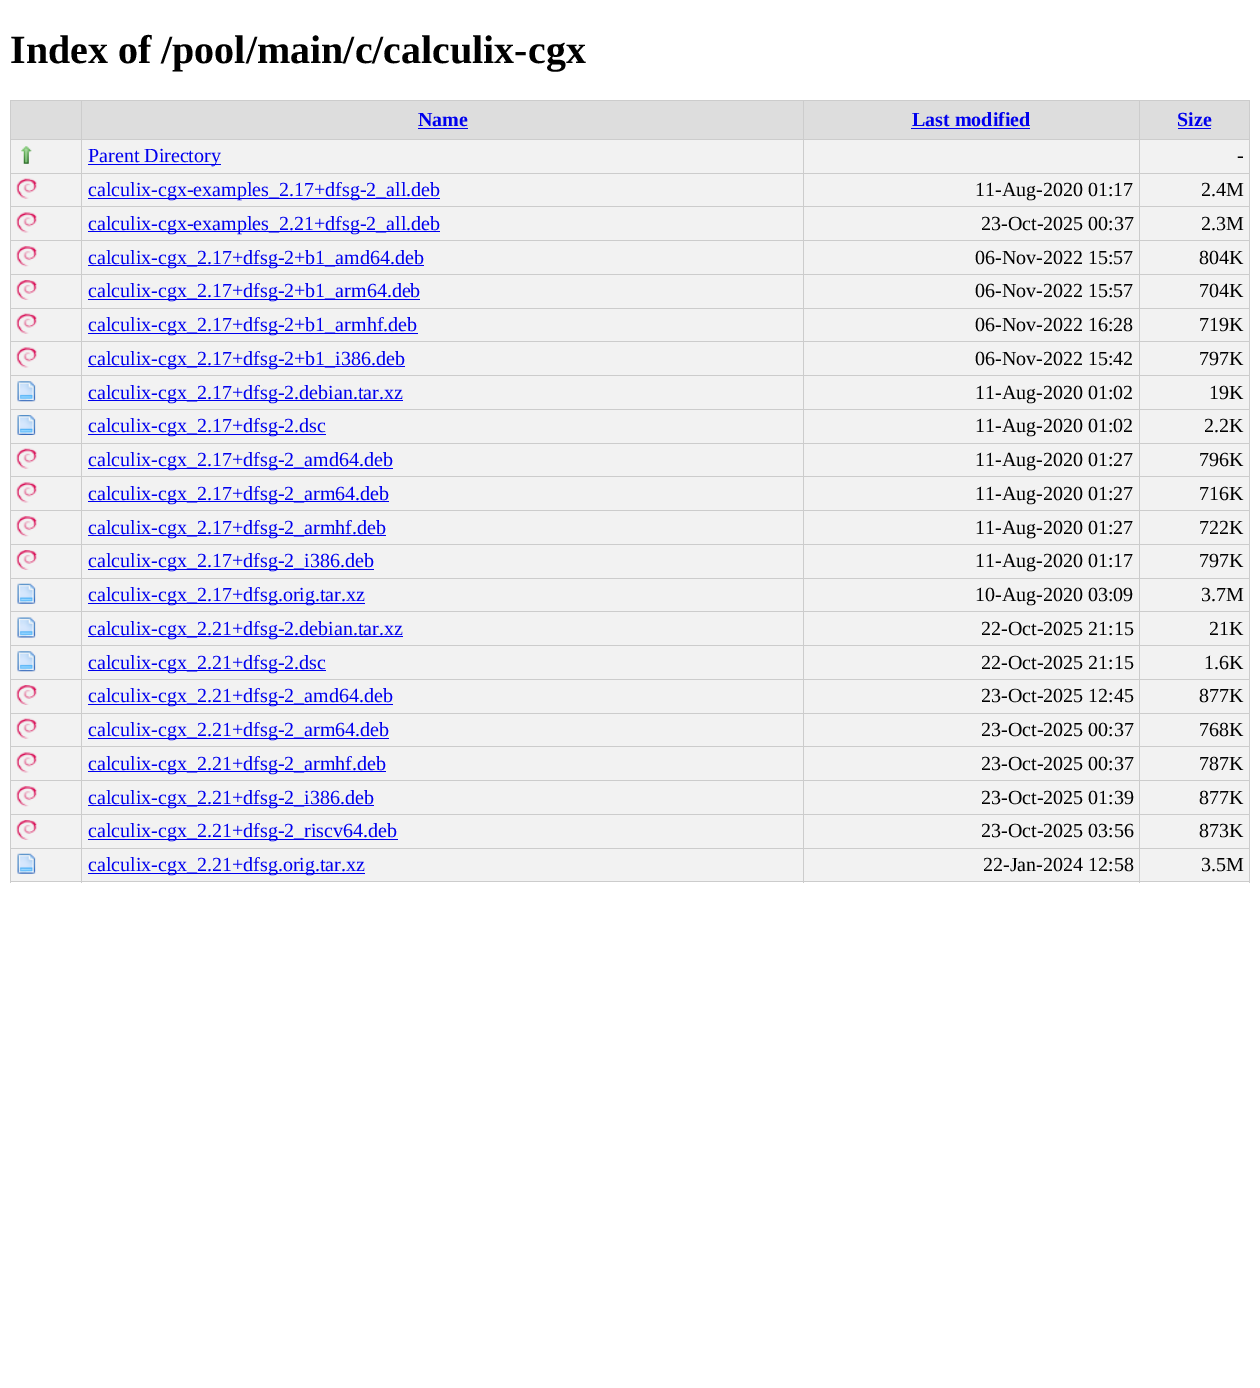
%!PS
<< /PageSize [1260 1388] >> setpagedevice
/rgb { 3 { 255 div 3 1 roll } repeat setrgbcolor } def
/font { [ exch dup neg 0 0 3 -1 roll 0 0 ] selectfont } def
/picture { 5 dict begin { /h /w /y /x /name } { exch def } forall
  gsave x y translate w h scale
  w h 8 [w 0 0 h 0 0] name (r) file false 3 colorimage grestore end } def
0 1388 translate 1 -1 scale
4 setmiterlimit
255 255 255 rgb
0 0 1260 1388 rectfill
[
  [11 101 792 38 221 221 221]
  [1139 100 111 1 204 204 204]
  [1139 139 111 1 204 204 204]
  [11 140 1238 33 242 242 242]
  [1139 173 111 1 204 204 204]
  [11 174 1238 32 242 242 242]
  [11 207 1238 33 242 242 242]
  [1139 206 111 1 204 204 204]
  [1139 240 111 1 204 204 204]
  [11 241 1238 33 242 242 242]
  [1139 274 111 1 204 204 204]
  [11 275 1238 33 242 242 242]
  [1139 308 111 1 204 204 204]
  [11 309 1238 32 242 242 242]
  [11 342 1238 33 242 242 242]
  [1139 341 111 1 204 204 204]
  [1139 375 111 1 204 204 204]
  [11 376 1238 33 242 242 242]
  [1139 409 111 1 204 204 204]
  [11 410 1238 33 242 242 242]
  [1139 443 111 1 204 204 204]
  [11 444 1238 32 242 242 242]
  [11 477 1238 33 242 242 242]
  [1139 476 111 1 204 204 204]
  [1139 510 111 1 204 204 204]
  [11 511 1238 33 242 242 242]
  [1139 544 111 1 204 204 204]
  [11 545 1238 33 242 242 242]
  [1139 578 111 1 204 204 204]
  [11 579 1238 32 242 242 242]
  [11 612 1238 33 242 242 242]
  [1139 611 111 1 204 204 204]
  [1139 645 111 1 204 204 204]
  [11 646 1238 33 242 242 242]
  [1139 679 111 1 204 204 204]
  [11 680 1238 33 242 242 242]
  [1139 713 111 1 204 204 204]
  [11 714 1238 32 242 242 242]
  [11 747 1238 33 242 242 242]
  [1139 746 111 1 204 204 204]
  [1139 780 111 1 204 204 204]
  [11 781 1238 33 242 242 242]
  [1139 814 111 1 204 204 204]
  [11 815 1238 33 242 242 242]
  [1139 848 111 1 204 204 204]
  [11 849 1238 32 242 242 242]
  [1249 848 1 35 204 204 204]
  [1139 881 111 1 204 204 204]
  [1139 848 1 35 204 204 204]
  [803 848 337 1 204 204 204]
  [1139 814 1 35 204 204 204]
  [803 814 337 1 204 204 204]
  [1139 780 1 35 204 204 204]
  [803 780 337 1 204 204 204]
  [1139 746 1 35 204 204 204]
  [803 746 337 1 204 204 204]
  [1139 713 1 35 204 204 204]
  [803 713 337 1 204 204 204]
  [1139 679 1 35 204 204 204]
  [803 679 337 1 204 204 204]
  [1139 645 1 35 204 204 204]
  [803 645 337 1 204 204 204]
  [1139 611 1 35 204 204 204]
  [803 611 337 1 204 204 204]
  [1139 578 1 35 204 204 204]
  [803 578 337 1 204 204 204]
  [1139 544 1 35 204 204 204]
  [803 544 337 1 204 204 204]
  [1139 510 1 35 204 204 204]
  [803 510 337 1 204 204 204]
  [1139 476 1 35 204 204 204]
  [803 476 337 1 204 204 204]
  [1139 443 1 35 204 204 204]
  [803 443 337 1 204 204 204]
  [1139 409 1 35 204 204 204]
  [803 409 337 1 204 204 204]
  [1139 375 1 35 204 204 204]
  [803 375 337 1 204 204 204]
  [1139 341 1 35 204 204 204]
  [803 341 337 1 204 204 204]
  [1139 308 1 35 204 204 204]
  [803 308 337 1 204 204 204]
  [1139 274 1 35 204 204 204]
  [803 274 337 1 204 204 204]
  [1139 240 1 35 204 204 204]
  [803 240 337 1 204 204 204]
  [1139 206 1 35 204 204 204]
  [803 206 337 1 204 204 204]
  [1139 173 1 35 204 204 204]
  [803 173 337 1 204 204 204]
  [1139 139 1 35 204 204 204]
  [803 139 337 1 204 204 204]
  [1139 100 1 40 204 204 204]
  [803 100 337 1 204 204 204]
  [803 881 337 1 204 204 204]
  [803 848 1 35 204 204 204]
  [81 848 723 1 204 204 204]
  [803 814 1 35 204 204 204]
  [81 814 723 1 204 204 204]
  [803 780 1 35 204 204 204]
  [81 780 723 1 204 204 204]
  [803 746 1 35 204 204 204]
  [81 746 723 1 204 204 204]
  [803 713 1 35 204 204 204]
  [81 713 723 1 204 204 204]
  [803 679 1 35 204 204 204]
  [81 679 723 1 204 204 204]
  [803 645 1 35 204 204 204]
  [81 645 723 1 204 204 204]
  [803 611 1 35 204 204 204]
  [81 611 723 1 204 204 204]
  [803 578 1 35 204 204 204]
  [81 578 723 1 204 204 204]
  [803 544 1 35 204 204 204]
  [81 544 723 1 204 204 204]
  [803 510 1 35 204 204 204]
  [81 510 723 1 204 204 204]
  [803 476 1 35 204 204 204]
  [81 476 723 1 204 204 204]
  [803 443 1 35 204 204 204]
  [81 443 723 1 204 204 204]
  [803 409 1 35 204 204 204]
  [81 409 723 1 204 204 204]
  [803 375 1 35 204 204 204]
  [81 375 723 1 204 204 204]
  [803 341 1 35 204 204 204]
  [81 341 723 1 204 204 204]
  [803 308 1 35 204 204 204]
  [81 308 723 1 204 204 204]
  [803 274 1 35 204 204 204]
  [81 274 723 1 204 204 204]
  [803 240 1 35 204 204 204]
  [81 240 723 1 204 204 204]
  [803 206 1 35 204 204 204]
  [81 206 723 1 204 204 204]
  [803 173 1 35 204 204 204]
  [81 173 723 1 204 204 204]
  [803 139 1 35 204 204 204]
  [81 139 723 1 204 204 204]
  [803 100 1 40 204 204 204]
  [81 100 723 1 204 204 204]
  [81 881 723 1 204 204 204]
  [81 848 1 35 204 204 204]
  [10 848 73 1 204 204 204]
  [81 814 1 35 204 204 204]
  [10 814 73 1 204 204 204]
  [81 780 1 35 204 204 204]
  [10 780 73 1 204 204 204]
  [81 746 1 35 204 204 204]
  [10 746 73 1 204 204 204]
  [81 713 1 35 204 204 204]
  [10 713 73 1 204 204 204]
  [81 679 1 35 204 204 204]
  [10 679 73 1 204 204 204]
  [81 645 1 35 204 204 204]
  [10 645 73 1 204 204 204]
  [81 611 1 35 204 204 204]
  [10 611 73 1 204 204 204]
  [81 578 1 35 204 204 204]
  [10 578 73 1 204 204 204]
  [81 544 1 35 204 204 204]
  [10 544 73 1 204 204 204]
  [81 510 1 35 204 204 204]
  [10 510 73 1 204 204 204]
  [81 476 1 35 204 204 204]
  [10 476 73 1 204 204 204]
  [81 443 1 35 204 204 204]
  [10 443 73 1 204 204 204]
  [81 409 1 35 204 204 204]
  [10 409 73 1 204 204 204]
  [81 375 1 35 204 204 204]
  [10 375 73 1 204 204 204]
  [81 341 1 35 204 204 204]
  [10 341 73 1 204 204 204]
  [81 308 1 35 204 204 204]
  [10 308 73 1 204 204 204]
  [81 274 1 35 204 204 204]
  [10 274 73 1 204 204 204]
  [81 240 1 35 204 204 204]
  [10 240 73 1 204 204 204]
  [81 206 1 35 204 204 204]
  [10 206 73 1 204 204 204]
  [81 173 1 35 204 204 204]
  [10 173 73 1 204 204 204]
  [81 139 1 35 204 204 204]
  [10 139 73 1 204 204 204]
  [81 100 1 40 204 204 204]
  [10 100 73 1 204 204 204]
  [10 881 73 1 204 204 204]
  [10 848 1 35 204 204 204]
  [10 814 1 35 204 204 204]
  [10 780 1 35 204 204 204]
  [10 746 1 35 204 204 204]
  [10 713 1 35 204 204 204]
  [10 679 1 35 204 204 204]
  [10 645 1 35 204 204 204]
  [10 611 1 35 204 204 204]
  [10 578 1 35 204 204 204]
  [10 544 1 35 204 204 204]
  [10 510 1 35 204 204 204]
  [10 476 1 35 204 204 204]
  [10 443 1 35 204 204 204]
  [10 409 1 35 204 204 204]
  [10 375 1 35 204 204 204]
  [10 341 1 35 204 204 204]
  [10 308 1 35 204 204 204]
  [10 274 1 35 204 204 204]
  [10 240 1 35 204 204 204]
  [10 206 1 35 204 204 204]
  [10 173 1 35 204 204 204]
  [10 139 1 35 204 204 204]
  [10 100 1 40 204 204 204]
  [804 101 335 38 221 221 221]
  [911 128 119 1 0 0 238]
  [418 128 50 1 0 0 238]
  [1140 101 109 38 221 221 221]
  [1249 814 1 35 204 204 204]
  [1249 780 1 35 204 204 204]
  [1249 746 1 35 204 204 204]
  [1249 713 1 35 204 204 204]
  [1249 679 1 35 204 204 204]
  [1249 645 1 35 204 204 204]
  [1249 611 1 35 204 204 204]
  [1249 578 1 35 204 204 204]
  [1249 544 1 35 204 204 204]
  [1249 510 1 35 204 204 204]
  [1249 476 1 35 204 204 204]
  [1249 443 1 35 204 204 204]
  [1249 409 1 35 204 204 204]
  [1249 375 1 35 204 204 204]
  [1249 341 1 35 204 204 204]
  [1249 308 1 35 204 204 204]
  [1249 274 1 35 204 204 204]
  [1249 240 1 35 204 204 204]
  [1249 206 1 35 204 204 204]
  [1249 173 1 35 204 204 204]
  [1249 139 1 35 204 204 204]
  [1249 100 1 40 204 204 204]
  [1178 128 33 1 0 0 238]
] { aload pop rgb rectfill } forall
(img/1.rgb) 21 146 11 18 picture
88 164 133 1 rectfill
(img/2.rgb) 16 178 21 21 picture
88 198 352 1 rectfill
(img/3.rgb) 16 212 21 21 picture
88 231 352 1 rectfill
(img/4.rgb) 16 246 21 21 picture
88 265 336 1 rectfill
(img/5.rgb) 16 280 21 20 picture
88 299 332 1 rectfill
(img/2.rgb) 16 313 21 21 picture
88 333 330 1 rectfill
(img/3.rgb) 16 347 21 21 picture
88 366 317 1 rectfill
(img/6.rgb) 17 381 19 21 picture
88 400 315 1 rectfill
(img/7.rgb) 17 415 19 20 picture
88 434 238 1 rectfill
(img/2.rgb) 16 448 21 21 picture
88 468 305 1 rectfill
(img/3.rgb) 16 482 21 21 picture
88 501 301 1 rectfill
(img/4.rgb) 16 516 21 21 picture
88 535 298 1 rectfill
(img/8.rgb) 16 550 21 20 picture
88 569 286 1 rectfill
(img/9.rgb) 17 583 19 21 picture
88 603 277 1 rectfill
(img/10.rgb) 17 617 19 21 picture
88 636 315 1 rectfill
(img/6.rgb) 17 651 19 21 picture
88 670 238 1 rectfill
(img/8.rgb) 16 685 21 20 picture
88 704 305 1 rectfill
(img/2.rgb) 16 718 21 21 picture
88 738 301 1 rectfill
(img/3.rgb) 16 752 21 21 picture
88 771 298 1 rectfill
(img/4.rgb) 16 786 21 21 picture
88 805 286 1 rectfill
(img/8.rgb) 16 820 21 20 picture
88 839 310 1 rectfill
(img/11.rgb) 17 853 19 21 picture
88 873 277 1 rectfill
/LiberationSerif-Bold 40 font
0 0 0 rgb
10 63 moveto (Index of /pool/main/c/calculix-cgx) show
/LiberationSerif-Bold 20 font
0 0 238 rgb
[
  [(Last modified) 912 126]
  [(Name) 418 126]
  [(Size) 1177 126]
] { aload pop moveto show } forall
/LiberationSerif-Regular 20 font
88 162 moveto (Parent Directory) show
0 0 0 rgb
1237 162 moveto (-) show
0 0 238 rgb
88 196 moveto (calculix-cgx-examples_2.17+dfsg-2_all.deb) show
0 0 0 rgb
975 196 moveto (11-Aug-2020 01:17) show
1201 196 moveto (2.4M) show
0 0 238 rgb
88 230 moveto (calculix-cgx-examples_2.21+dfsg-2_all.deb) show
0 0 0 rgb
981 230 moveto (23-Oct-2025 00:37) show
1201 230 moveto (2.3M) show
0 0 238 rgb
88 264 moveto (calculix-cgx_2.17+dfsg-2+b1_amd64.deb) show
0 0 0 rgb
975 264 moveto (06-Nov-2022 15:57) show
1199 264 moveto (804K) show
0 0 238 rgb
88 297 moveto (calculix-cgx_2.17+dfsg-2+b1_arm64.deb) show
0 0 0 rgb
975 297 moveto (06-Nov-2022 15:57) show
1199 297 moveto (704K) show
0 0 238 rgb
88 331 moveto (calculix-cgx_2.17+dfsg-2+b1_armhf.deb) show
0 0 0 rgb
975 331 moveto (06-Nov-2022 16:28) show
1199 331 moveto (719K) show
0 0 238 rgb
88 365 moveto (calculix-cgx_2.17+dfsg-2+b1_i386.deb) show
0 0 0 rgb
975 365 moveto (06-Nov-2022 15:42) show
1199 365 moveto (797K) show
0 0 238 rgb
88 399 moveto (calculix-cgx_2.17+dfsg-2.debian.tar.xz) show
0 0 0 rgb
975 399 moveto (11-Aug-2020 01:02) show
1209 399 moveto (19K) show
0 0 238 rgb
88 432 moveto (calculix-cgx_2.17+dfsg-2.dsc) show
0 0 0 rgb
975 432 moveto (11-Aug-2020 01:02) show
1204 432 moveto (2.2K) show
0 0 238 rgb
88 466 moveto (calculix-cgx_2.17+dfsg-2_amd64.deb) show
0 0 0 rgb
975 466 moveto (11-Aug-2020 01:27) show
1199 466 moveto (796K) show
0 0 238 rgb
88 500 moveto (calculix-cgx_2.17+dfsg-2_arm64.deb) show
0 0 0 rgb
975 500 moveto (11-Aug-2020 01:27) show
1199 500 moveto (716K) show
0 0 238 rgb
88 534 moveto (calculix-cgx_2.17+dfsg-2_armhf.deb) show
0 0 0 rgb
975 534 moveto (11-Aug-2020 01:27) show
1199 534 moveto (722K) show
0 0 238 rgb
88 567 moveto (calculix-cgx_2.17+dfsg-2_i386.deb) show
0 0 0 rgb
975 567 moveto (11-Aug-2020 01:17) show
1199 567 moveto (797K) show
0 0 238 rgb
88 601 moveto (calculix-cgx_2.17+dfsg.orig.tar.xz) show
0 0 0 rgb
975 601 moveto (10-Aug-2020 03:09) show
1201 601 moveto (3.7M) show
0 0 238 rgb
88 635 moveto (calculix-cgx_2.21+dfsg-2.debian.tar.xz) show
0 0 0 rgb
981 635 moveto (22-Oct-2025 21:15) show
1209 635 moveto (21K) show
0 0 238 rgb
88 669 moveto (calculix-cgx_2.21+dfsg-2.dsc) show
0 0 0 rgb
981 669 moveto (22-Oct-2025 21:15) show
1204 669 moveto (1.6K) show
0 0 238 rgb
88 702 moveto (calculix-cgx_2.21+dfsg-2_amd64.deb) show
0 0 0 rgb
981 702 moveto (23-Oct-2025 12:45) show
1199 702 moveto (877K) show
0 0 238 rgb
88 736 moveto (calculix-cgx_2.21+dfsg-2_arm64.deb) show
0 0 0 rgb
981 736 moveto (23-Oct-2025 00:37) show
1199 736 moveto (768K) show
0 0 238 rgb
88 770 moveto (calculix-cgx_2.21+dfsg-2_armhf.deb) show
0 0 0 rgb
981 770 moveto (23-Oct-2025 00:37) show
1199 770 moveto (787K) show
0 0 238 rgb
88 804 moveto (calculix-cgx_2.21+dfsg-2_i386.deb) show
0 0 0 rgb
981 804 moveto (23-Oct-2025 01:39) show
1199 804 moveto (877K) show
0 0 238 rgb
88 837 moveto (calculix-cgx_2.21+dfsg-2_riscv64.deb) show
0 0 0 rgb
981 837 moveto (23-Oct-2025 03:56) show
1199 837 moveto (873K) show
0 0 238 rgb
88 871 moveto (calculix-cgx_2.21+dfsg.orig.tar.xz) show
0 0 0 rgb
983 871 moveto (22-Jan-2024 12:58) show
1201 871 moveto (3.5M) show
showpage
